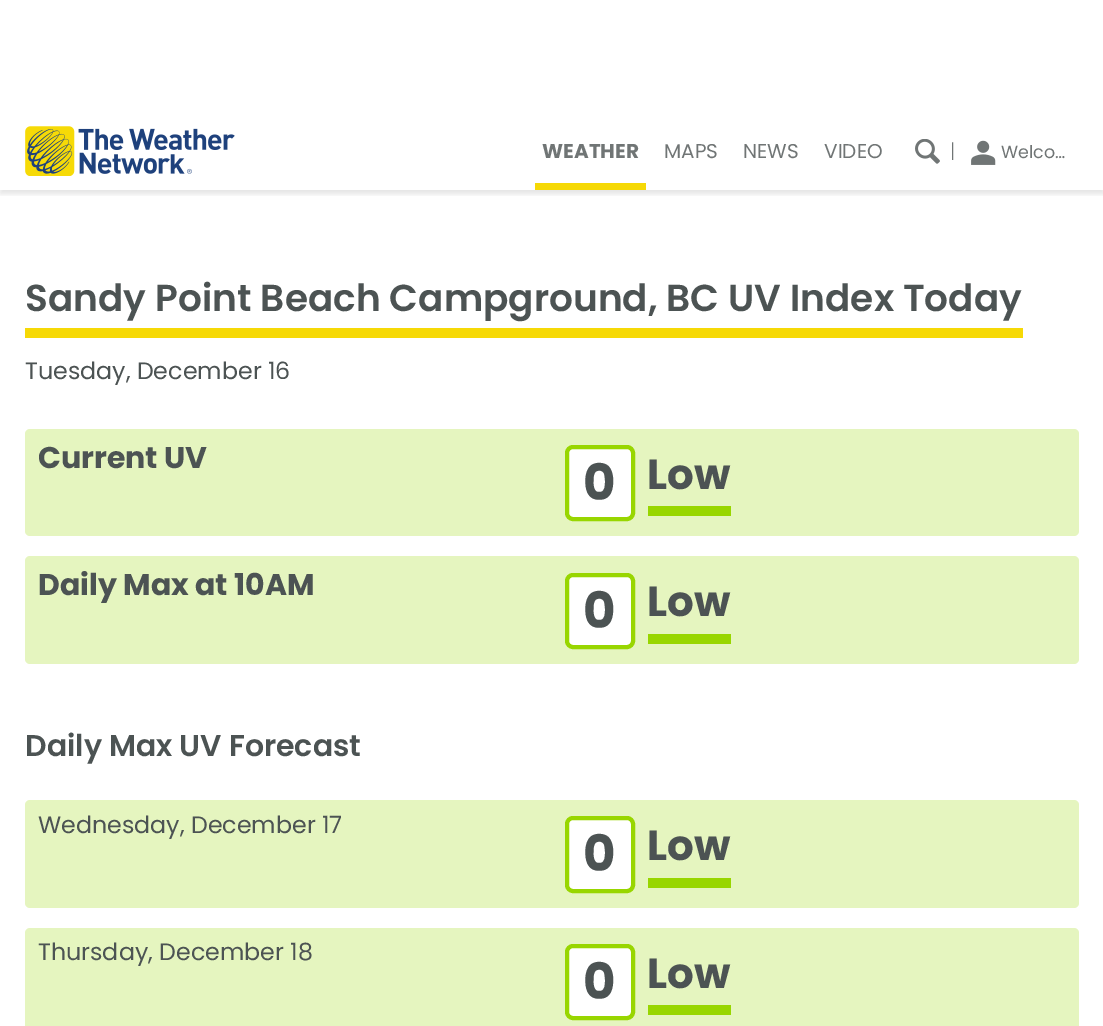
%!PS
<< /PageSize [1103 1026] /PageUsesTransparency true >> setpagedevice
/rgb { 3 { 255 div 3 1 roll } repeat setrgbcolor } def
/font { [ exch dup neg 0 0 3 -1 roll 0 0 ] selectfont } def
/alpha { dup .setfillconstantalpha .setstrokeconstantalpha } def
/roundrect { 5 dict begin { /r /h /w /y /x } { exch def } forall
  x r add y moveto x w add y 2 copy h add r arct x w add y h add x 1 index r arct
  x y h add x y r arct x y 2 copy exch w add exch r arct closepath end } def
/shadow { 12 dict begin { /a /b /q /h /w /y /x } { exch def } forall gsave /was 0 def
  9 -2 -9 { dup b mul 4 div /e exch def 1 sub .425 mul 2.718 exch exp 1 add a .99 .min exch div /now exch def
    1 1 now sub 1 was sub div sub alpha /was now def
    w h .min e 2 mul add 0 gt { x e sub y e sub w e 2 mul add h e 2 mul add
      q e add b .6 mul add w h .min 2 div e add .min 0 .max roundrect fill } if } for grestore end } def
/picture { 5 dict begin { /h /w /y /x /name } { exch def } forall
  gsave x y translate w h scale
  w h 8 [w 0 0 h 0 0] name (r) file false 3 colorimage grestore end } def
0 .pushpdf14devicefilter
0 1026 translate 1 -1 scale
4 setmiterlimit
255 255 255 rgb
0 0 1103 1026 rectfill
gsave
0 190 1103 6 rectclip
0 0 0 rgb
0 116 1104 78 0 2.5 0.1 shadow
grestore
(img/1.rgb) 25 126 210 50 picture
246 217 6 rgb
535 183 111 7 rectfill
(img/2.rgb) 915 139 25 25 picture
(img/3.rgb) 971 140 25 25 picture
25 328 998 10 rectfill
229 245 191 rgb
25 429 1054 107 5 roundrect fill
255 255 255 rgb
567 447 66 72 6 roundrect gsave fill grestore
152 214 0 rgb
4 setlinewidth
stroke
648 506 83 10 rectfill
229 245 191 rgb
25 556 1054 108 5 roundrect fill
255 255 255 rgb
567 575 66 72 6 roundrect gsave fill grestore
152 214 0 rgb
stroke
648 634 83 10 rectfill
229 245 191 rgb
25 800 1054 108 5 roundrect fill
255 255 255 rgb
567 818 66 73 6 roundrect gsave fill grestore
152 214 0 rgb
stroke
648 878 83 10 rectfill
229 245 191 rgb
25 928 1054 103 5 roundrect fill
255 255 255 rgb
567 946 66 72 6 roundrect gsave fill grestore
152 214 0 rgb
stroke
648 1005 83 10 rectfill
/Poppins-Bold 20 font
112 117 117 rgb
542 158 moveto (WEATHER) show
/Poppins-Regular 20 font
[
  [(MAPS) 664 158]
  [(NEWS) 743 158]
  [(VIDEO) 824 158]
] { aload pop moveto show } forall
/Poppins-Light 20 font
950 158 moveto (|) show
/Poppins-Regular 17.5 font
1001 158 moveto (Welco…) show
/Poppins-SemiBold 37.5 font
76 83 83 rgb
25 311 moveto (Sandy Point Beach Campground, BC UV Index Today) show
/Poppins-Regular 23.75 font
25 379 moveto (Tuesday, December 16) show
/Poppins-Bold 30 font
38 468 moveto (Current UV) show
/Poppins-Bold 50 font
583 500 moveto (0) show
/Poppins-Bold 42 font
647 489 moveto (Low) show
/Poppins-Bold 30 font
38 595 moveto (Daily Max at 10AM) show
/Poppins-Bold 50 font
583 628 moveto (0) show
/Poppins-Bold 42 font
647 616 moveto (Low) show
/Poppins-SemiBold 30 font
25 756 moveto (Daily Max UV Forecast) show
/Poppins-Regular 23.75 font
38 833 moveto (Wednesday, December 17) show
/Poppins-Bold 50 font
583 871 moveto (0) show
/Poppins-Bold 42 font
647 860 moveto (Low) show
/Poppins-Regular 23.75 font
38 960 moveto (Thursday, December 18) show
/Poppins-Bold 50 font
583 999 moveto (0) show
/Poppins-Bold 42 font
647 988 moveto (Low) show
.poppdf14devicefilter showpage
